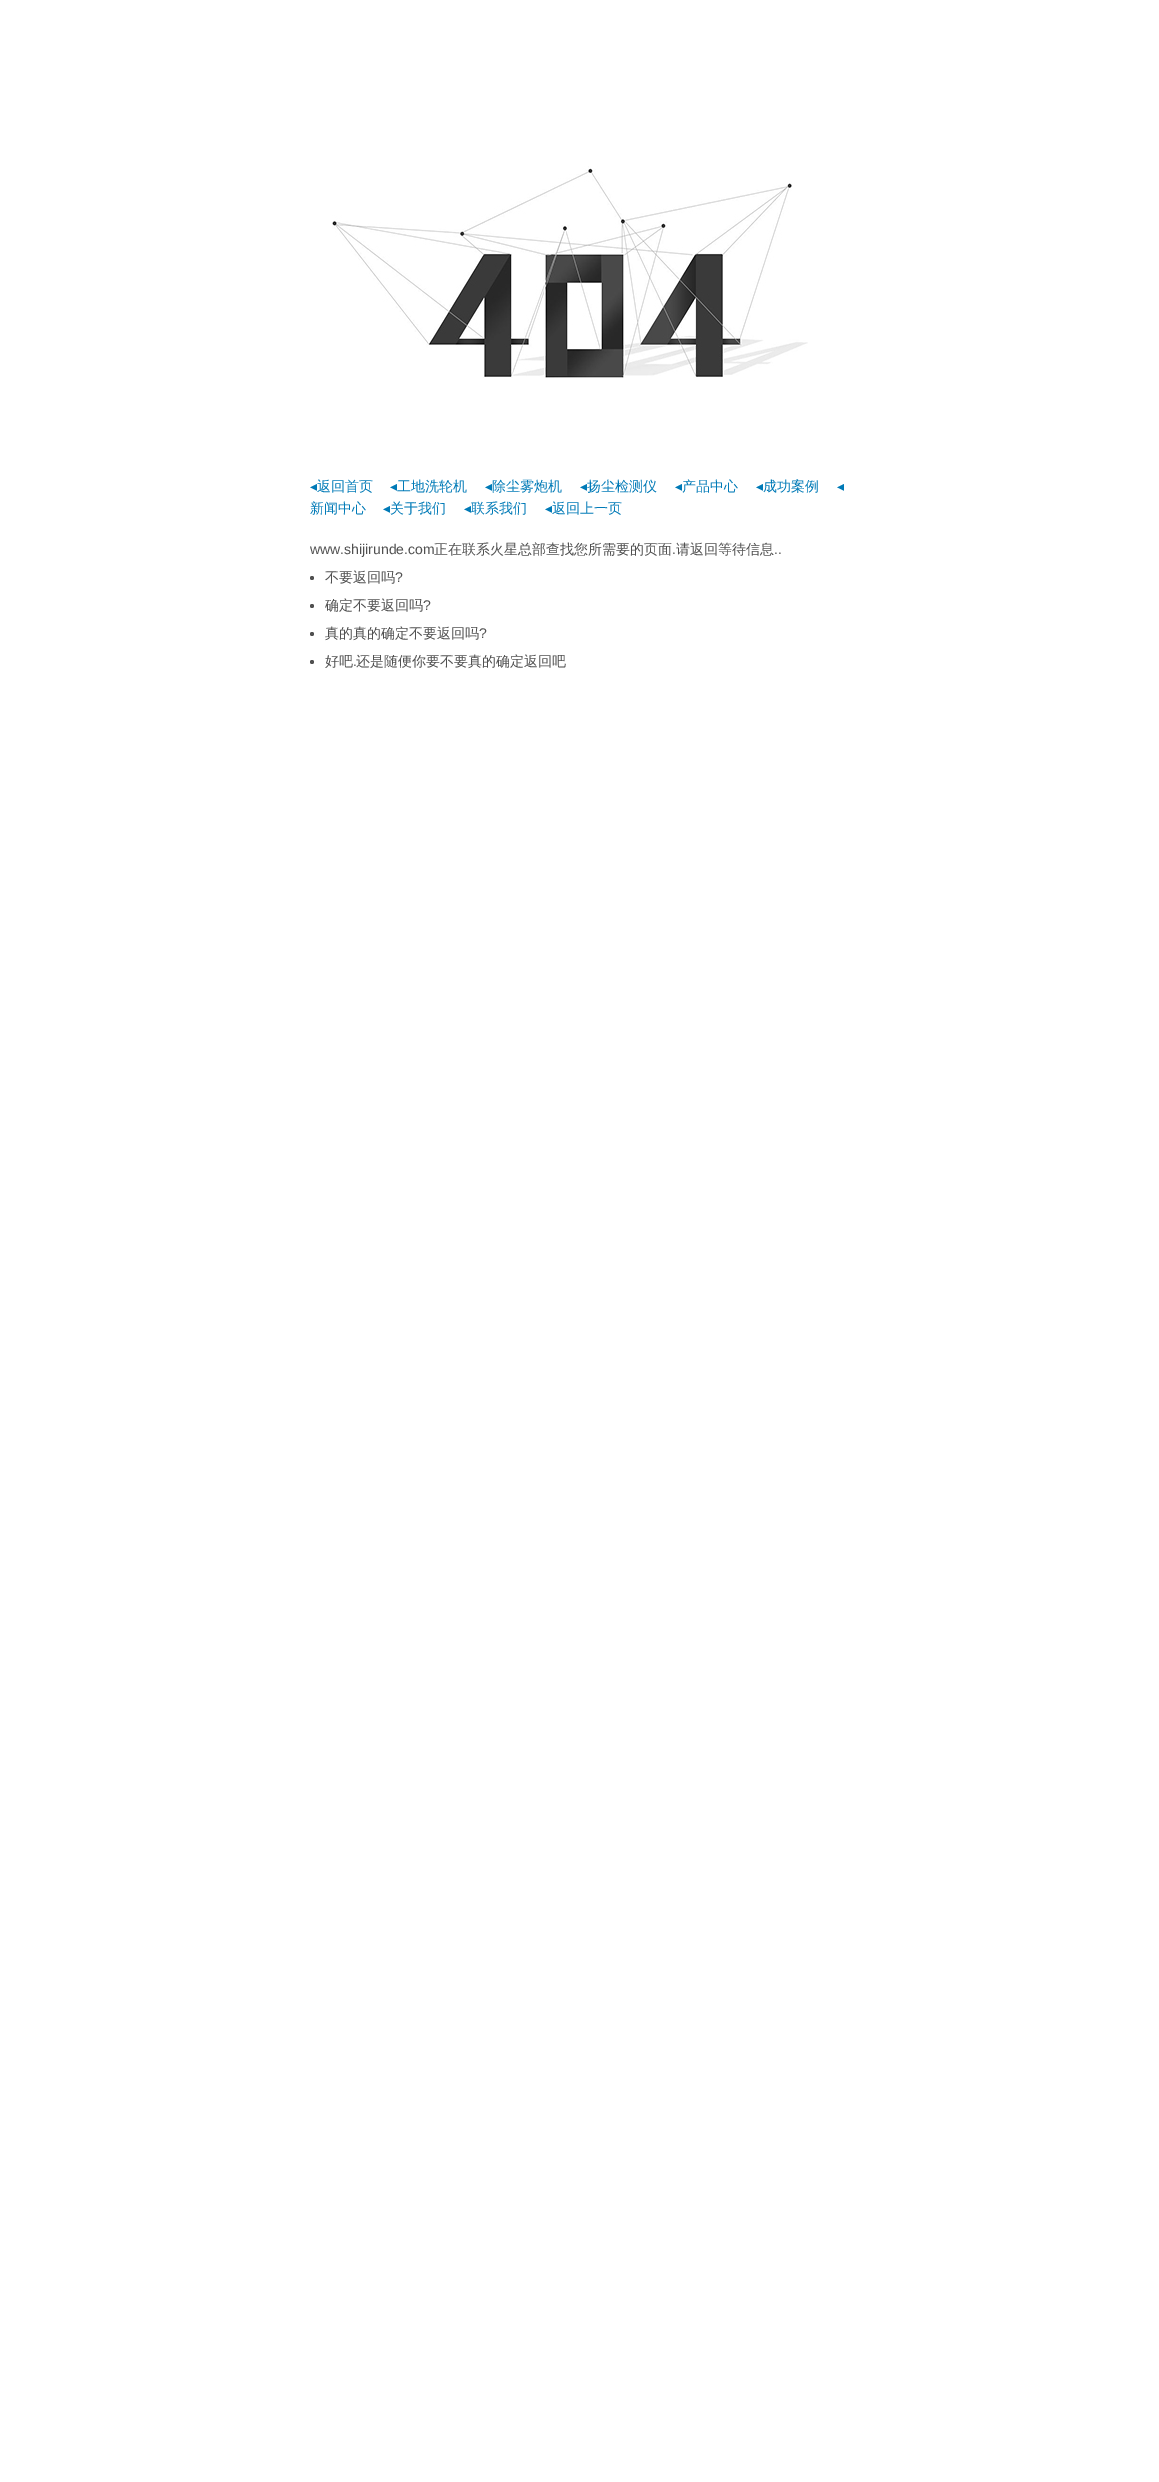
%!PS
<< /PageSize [1159 2482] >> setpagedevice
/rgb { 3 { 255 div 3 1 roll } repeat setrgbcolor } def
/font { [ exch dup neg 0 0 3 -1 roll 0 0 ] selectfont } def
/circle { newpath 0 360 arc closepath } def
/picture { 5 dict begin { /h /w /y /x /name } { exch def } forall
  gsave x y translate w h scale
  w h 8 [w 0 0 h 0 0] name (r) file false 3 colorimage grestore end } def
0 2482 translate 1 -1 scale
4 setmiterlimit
255 255 255 rgb
0 0 1159 2482 rectfill
(img/1.rgb) 332 166 476 212 picture
80 80 80 rgb
312 578 2 circle fill
312 606 2 circle fill
312 634 2 circle fill
312 662 2 circle fill
/DejaVuSans-Regular 14 font
0 122 183 rgb
310 491 moveto (◂) show
/WenQuanYiZenHei-Medium 14 font
317 491 moveto (返回首页) show
/DejaVuSans-Regular 14 font
390 491 moveto (◂) show
/WenQuanYiZenHei-Medium 14 font
397 491 moveto (工地洗轮机) show
/DejaVuSans-Regular 14 font
485 491 moveto (◂) show
/WenQuanYiZenHei-Medium 14 font
492 491 moveto (除尘雾炮机) show
/DejaVuSans-Regular 14 font
580 491 moveto (◂) show
/WenQuanYiZenHei-Medium 14 font
587 491 moveto (扬尘检测仪) show
/DejaVuSans-Regular 14 font
675 491 moveto (◂) show
/WenQuanYiZenHei-Medium 14 font
682 491 moveto (产品中心) show
/DejaVuSans-Regular 14 font
756 491 moveto (◂) show
/WenQuanYiZenHei-Medium 14 font
763 491 moveto (成功案例) show
/DejaVuSans-Regular 14 font
837 491 moveto (◂) show
/WenQuanYiZenHei-Medium 14 font
310 513 moveto (新闻中心) show
/DejaVuSans-Regular 14 font
383 513 moveto (◂) show
/WenQuanYiZenHei-Medium 14 font
390 513 moveto (关于我们) show
/DejaVuSans-Regular 14 font
464 513 moveto (◂) show
/WenQuanYiZenHei-Medium 14 font
471 513 moveto (联系我们) show
/DejaVuSans-Regular 14 font
545 513 moveto (◂) show
/WenQuanYiZenHei-Medium 14 font
552 513 moveto (返回上一页) show
/LiberationSans-Regular 14 font
80 80 80 rgb
310 554 moveto (www.shijirunde.com) show
/WenQuanYiZenHei-Medium 14 font
434 554 moveto (正在联系火星总部查找您所需要的页面) show
/LiberationSans-Regular 14 font
672 554 moveto (.) show
/WenQuanYiZenHei-Medium 14 font
676 554 moveto (请返回等待信息) show
/LiberationSans-Regular 14 font
774 554 moveto (..) show
/WenQuanYiZenHei-Medium 14 font
325 582 moveto (不要返回吗) show
/LiberationSans-Regular 14 font
395 582 moveto (?) show
/WenQuanYiZenHei-Medium 14 font
325 610 moveto (确定不要返回吗) show
/LiberationSans-Regular 14 font
423 610 moveto (?) show
/WenQuanYiZenHei-Medium 14 font
325 638 moveto (真的真的确定不要返回吗) show
/LiberationSans-Regular 14 font
479 638 moveto (?) show
/WenQuanYiZenHei-Medium 14 font
325 666 moveto (好吧) show
356 666 moveto (还是随便你要不要真的确定返回吧) show
/LiberationSans-Regular 14 font
353 666 moveto (.) show
showpage
